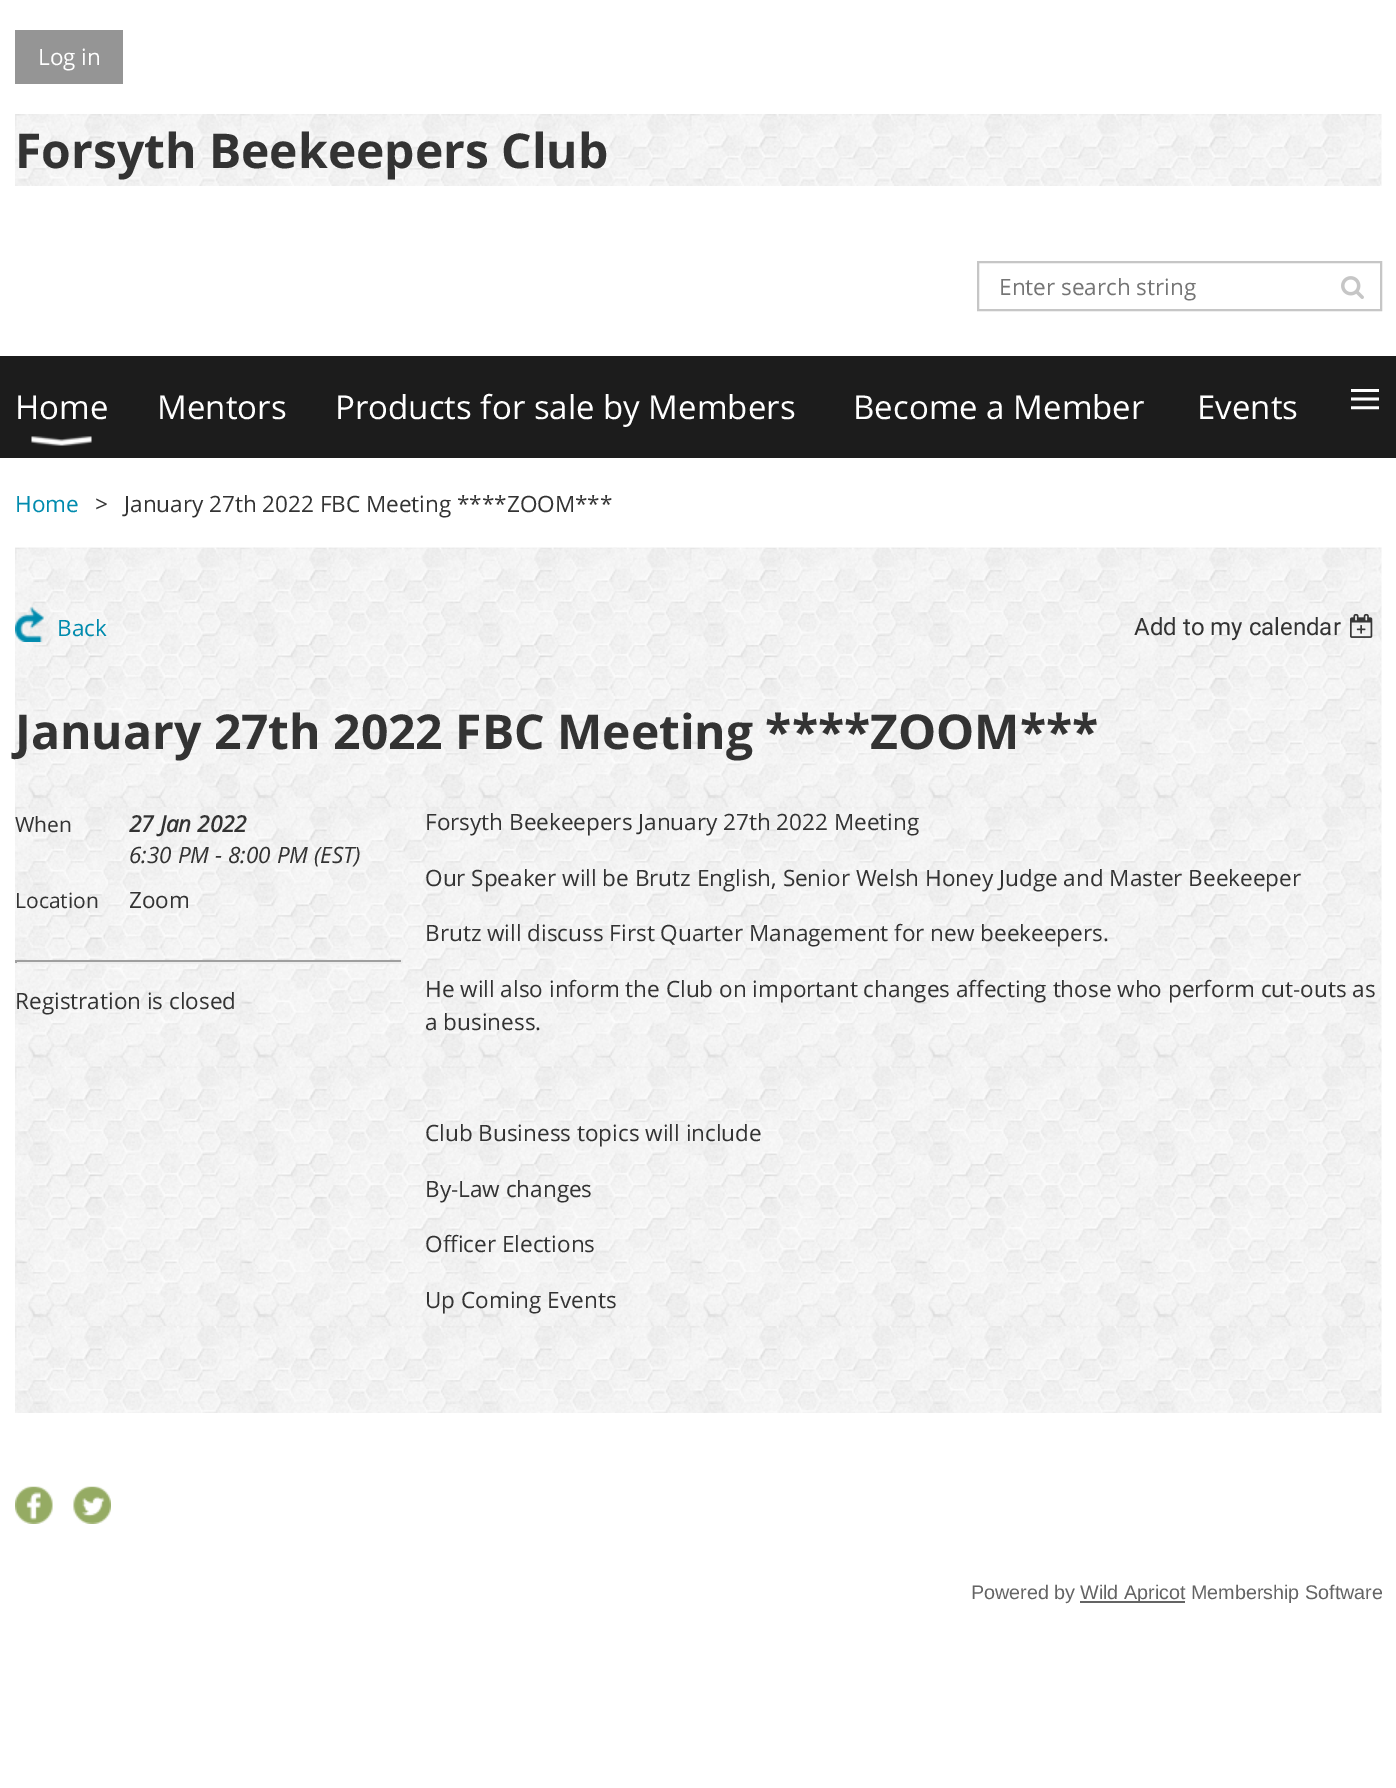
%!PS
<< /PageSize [1396 1788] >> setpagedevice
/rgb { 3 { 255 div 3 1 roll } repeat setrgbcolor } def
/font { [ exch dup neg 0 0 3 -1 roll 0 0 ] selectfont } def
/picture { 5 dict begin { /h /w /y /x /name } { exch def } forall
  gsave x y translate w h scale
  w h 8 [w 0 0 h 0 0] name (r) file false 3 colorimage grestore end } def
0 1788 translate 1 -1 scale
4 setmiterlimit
255 255 255 rgb
0 0 1396 1788 rectfill
149 149 149 rgb
15 30 108 54 rectfill
(img/1.rgb) 15 114 1367 72 picture
198 198 198 rgb
2 setlinewidth
978 262 403 48 rectstroke
(img/2.rgb) 1341 276 23 23 picture
28 28 28 rgb
0 356 1396 102 rectfill
(img/3.rgb) 31 436 61 10 picture
(img/4.rgb) 15 547 1367 866 picture
(img/5.rgb) 15 607 29 35 picture
(img/6.rgb) 1350 613 23 25 picture
[
  [15 960 387 2 159 159 159]
  [401 960 2 3 238 238 238]
  [15 962 387 2 238 238 238]
  [15 960 2 3 159 159 159]
] { aload pop rgb rectfill } forall
(img/7.rgb) 15 1486 38 38 picture
(img/8.rgb) 73 1486 38 38 picture
100 100 100 rgb
1080 1601 105 2 rectfill
/OpenSans-Regular 22.5 font
255 255 255 rgb
38 65 moveto (Log in) show
/OpenSans-Bold 48 font
51 51 51 rgb
15 168 moveto (Forsyth Beekeepers Club) show
/OpenSans-Regular 22.5 font
117 117 117 rgb
999 295 moveto (Enter search string) show
/OpenSans-Regular 33 font
255 255 255 rgb
[
  [(Home) 15 419]
  [(Mentors) 157 419]
  [(Products for sale by Members) 335 419]
  [(Become a Member) 853 419]
  [(Events) 1197 419]
] { aload pop moveto show } forall
/LiberationSerif-Regular 60 font
1348 419 moveto (≡) show
/OpenSans-Regular 22.5 font
0 139 174 rgb
15 512 moveto (Home) show
51 51 51 rgb
95 512 moveto (>) show
124 512 moveto (January 27th 2022 FBC Meeting ****ZOOM***) show
0 139 174 rgb
57 636 moveto (Back) show
/Roboto-Regular 24 font
51 51 51 rgb
1134 635 moveto (Add to my calendar) show
/OpenSans-Bold 48 font
15 749 moveto (January 27th 2022 FBC Meeting ****ZOOM***) show
/OpenSans-Regular 21 font
15 832 moveto (When) show
/OpenSans-BoldItalic 22.5 font
129 832 moveto (27 Jan 2022) show
/OpenSans-Italic 22.5 font
129 863 moveto (6:30 PM - 8:00 PM \(EST\)) show
/OpenSans-Regular 21 font
15 908 moveto (Location) show
/OpenSans-Regular 22.5 font
[
  [(Zoom) 129 908]
  [(Registration is closed) 15 1009]
  [(Forsyth Beekeepers January 27th 2022 Meeting) 425 830]
  [(Our Speaker will be Brutz English, Senior Welsh Honey Judge and Master Beekeeper) 425 886]
  [(Brutz will discuss First Quarter Management for new beekeepers.) 425 941]
  [(He will also inform the Club on important changes affecting those who perform cut-outs as) 425 997]
  [(a business.) 425 1030]
  [(Club Business topics will include) 425 1141]
  [(By-Law changes) 425 1197]
  [(Officer Elections) 425 1252]
  [(Up Coming Events) 425 1308]
] { aload pop moveto show } forall
/LiberationSans-Regular 19.75 font
100 100 100 rgb
971 1599 moveto (Powered by) show
1080 1599 moveto (Wild Apricot Membership Software) show
showpage
